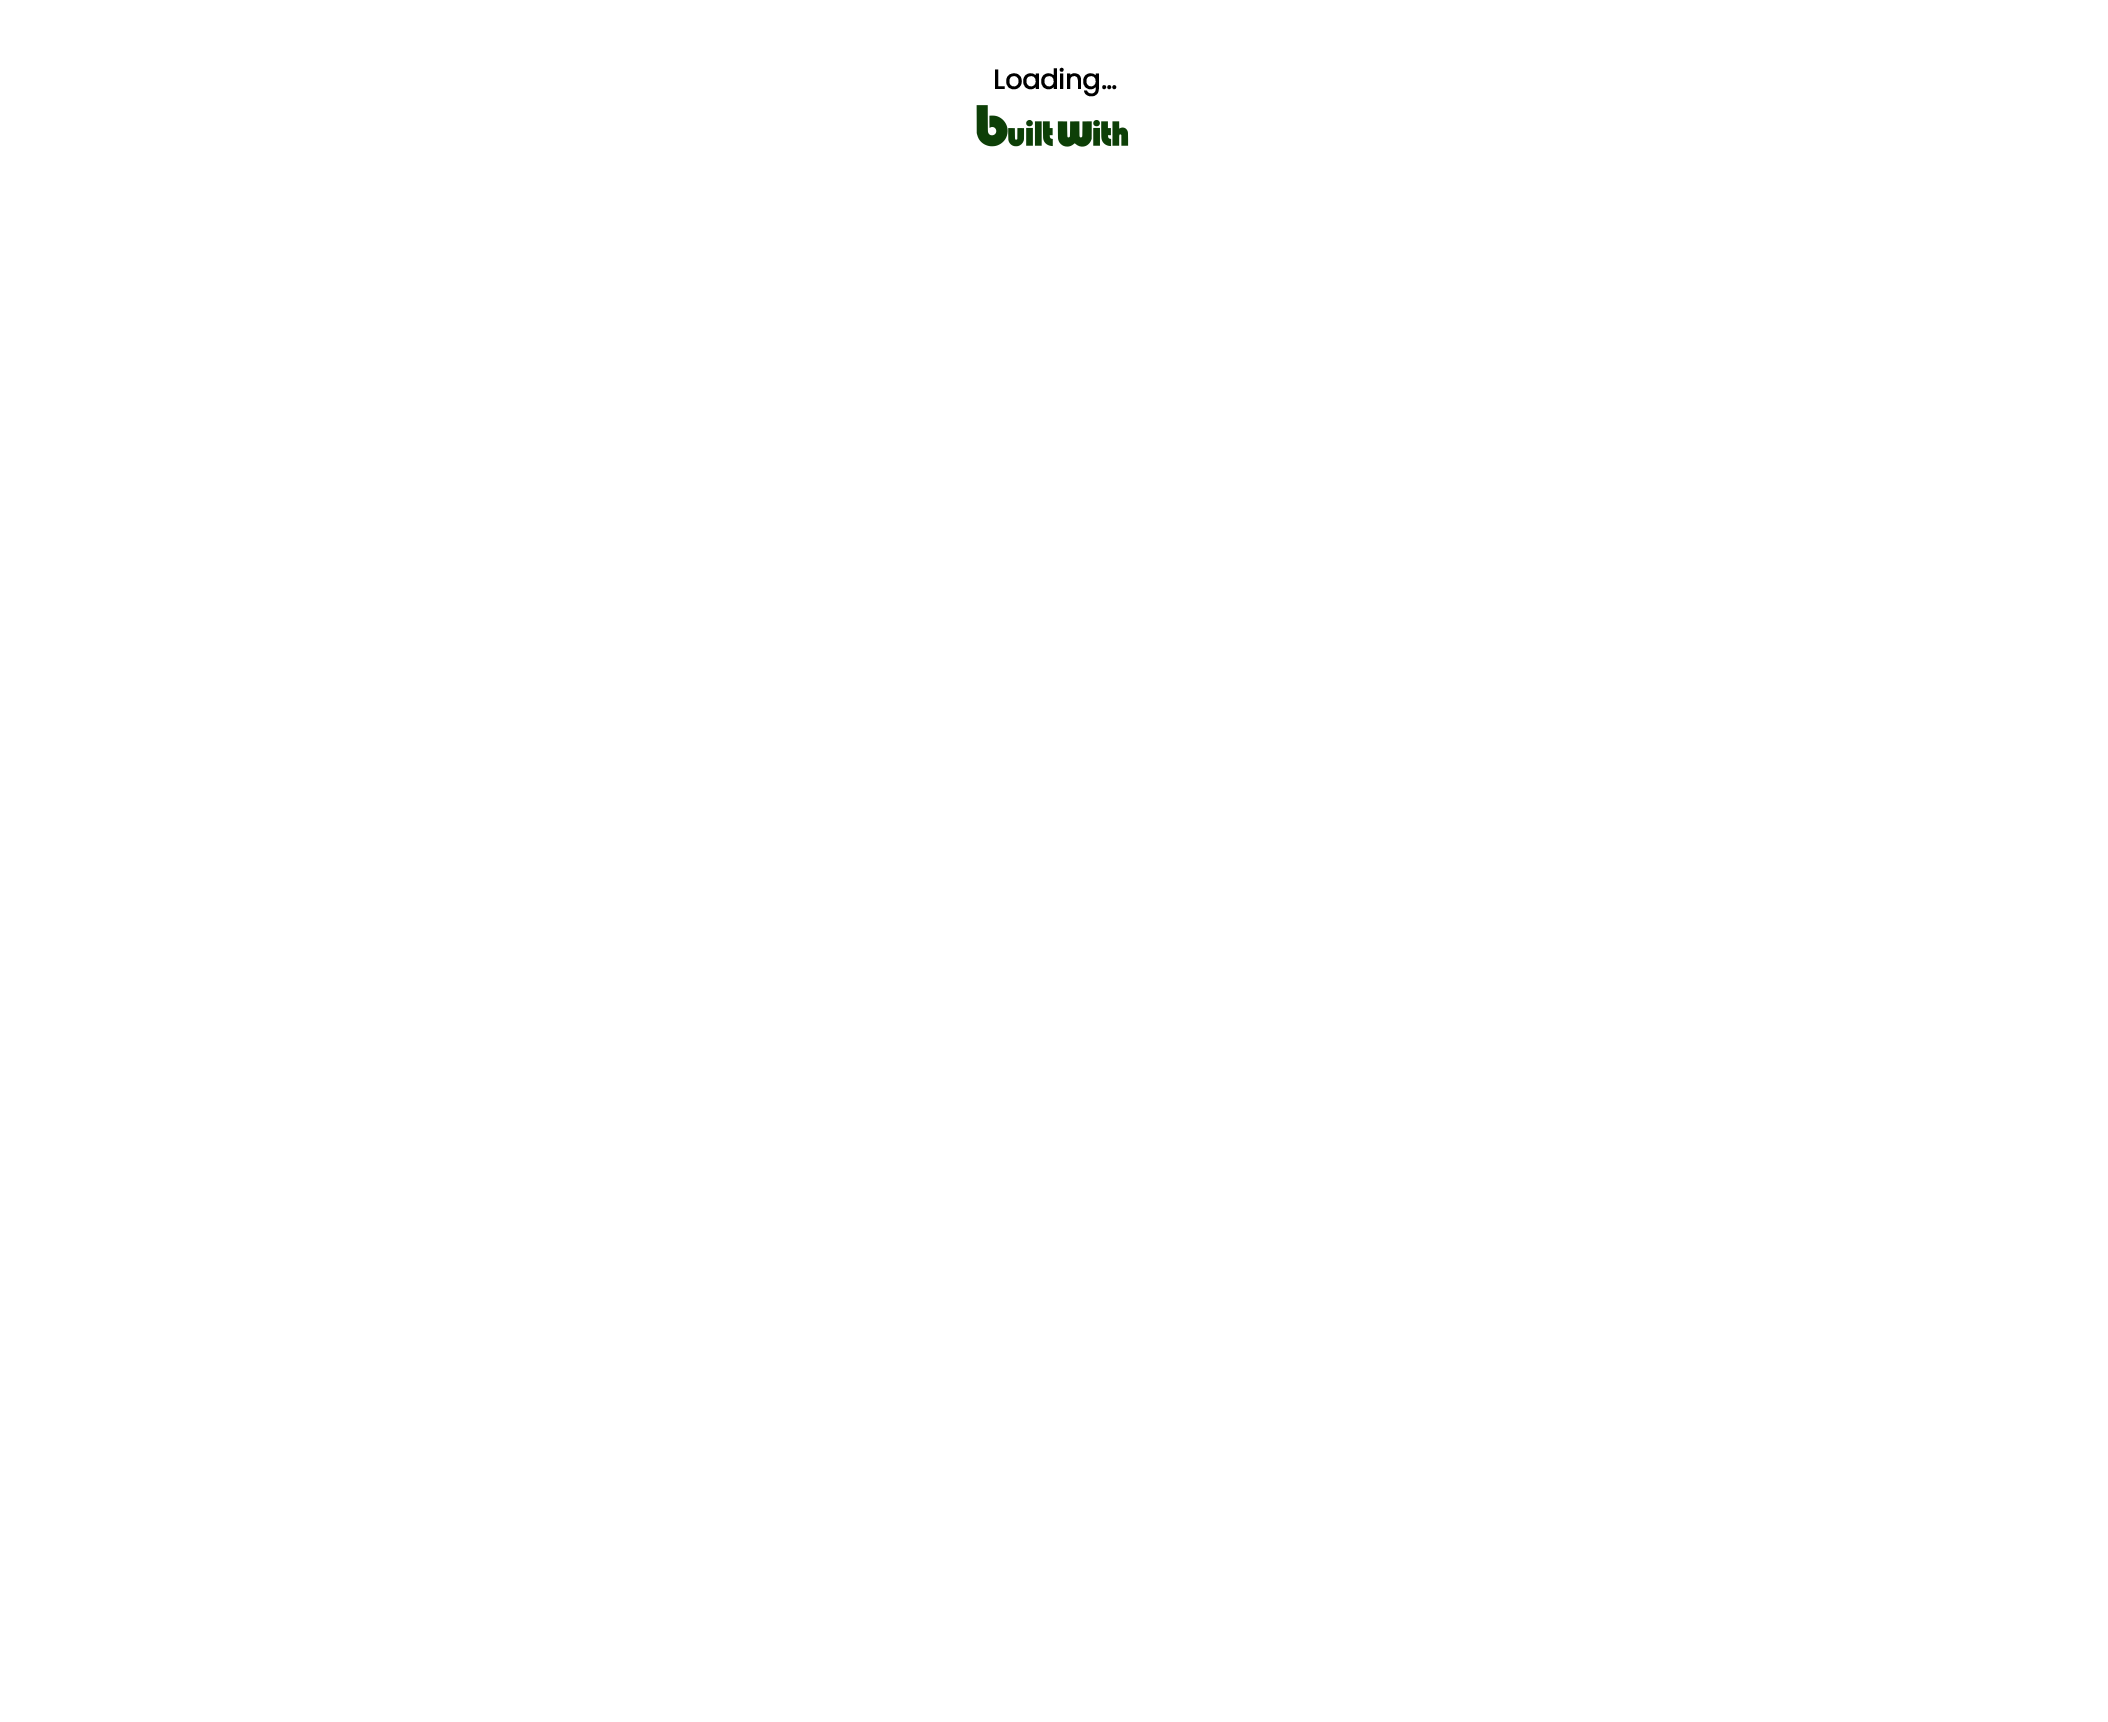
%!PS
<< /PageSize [2108 1722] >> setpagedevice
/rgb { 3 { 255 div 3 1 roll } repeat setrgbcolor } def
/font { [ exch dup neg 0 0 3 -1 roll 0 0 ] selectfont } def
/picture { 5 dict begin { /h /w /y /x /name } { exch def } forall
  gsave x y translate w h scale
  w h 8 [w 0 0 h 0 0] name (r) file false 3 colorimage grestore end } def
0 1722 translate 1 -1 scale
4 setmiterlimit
255 255 255 rgb
0 0 2108 1722 rectfill
(img/1.rgb) 976 105 153 42 picture
/Poppins-Bold 27 font
0 0 0 rgb
993 89 moveto (Loading…) show
showpage
